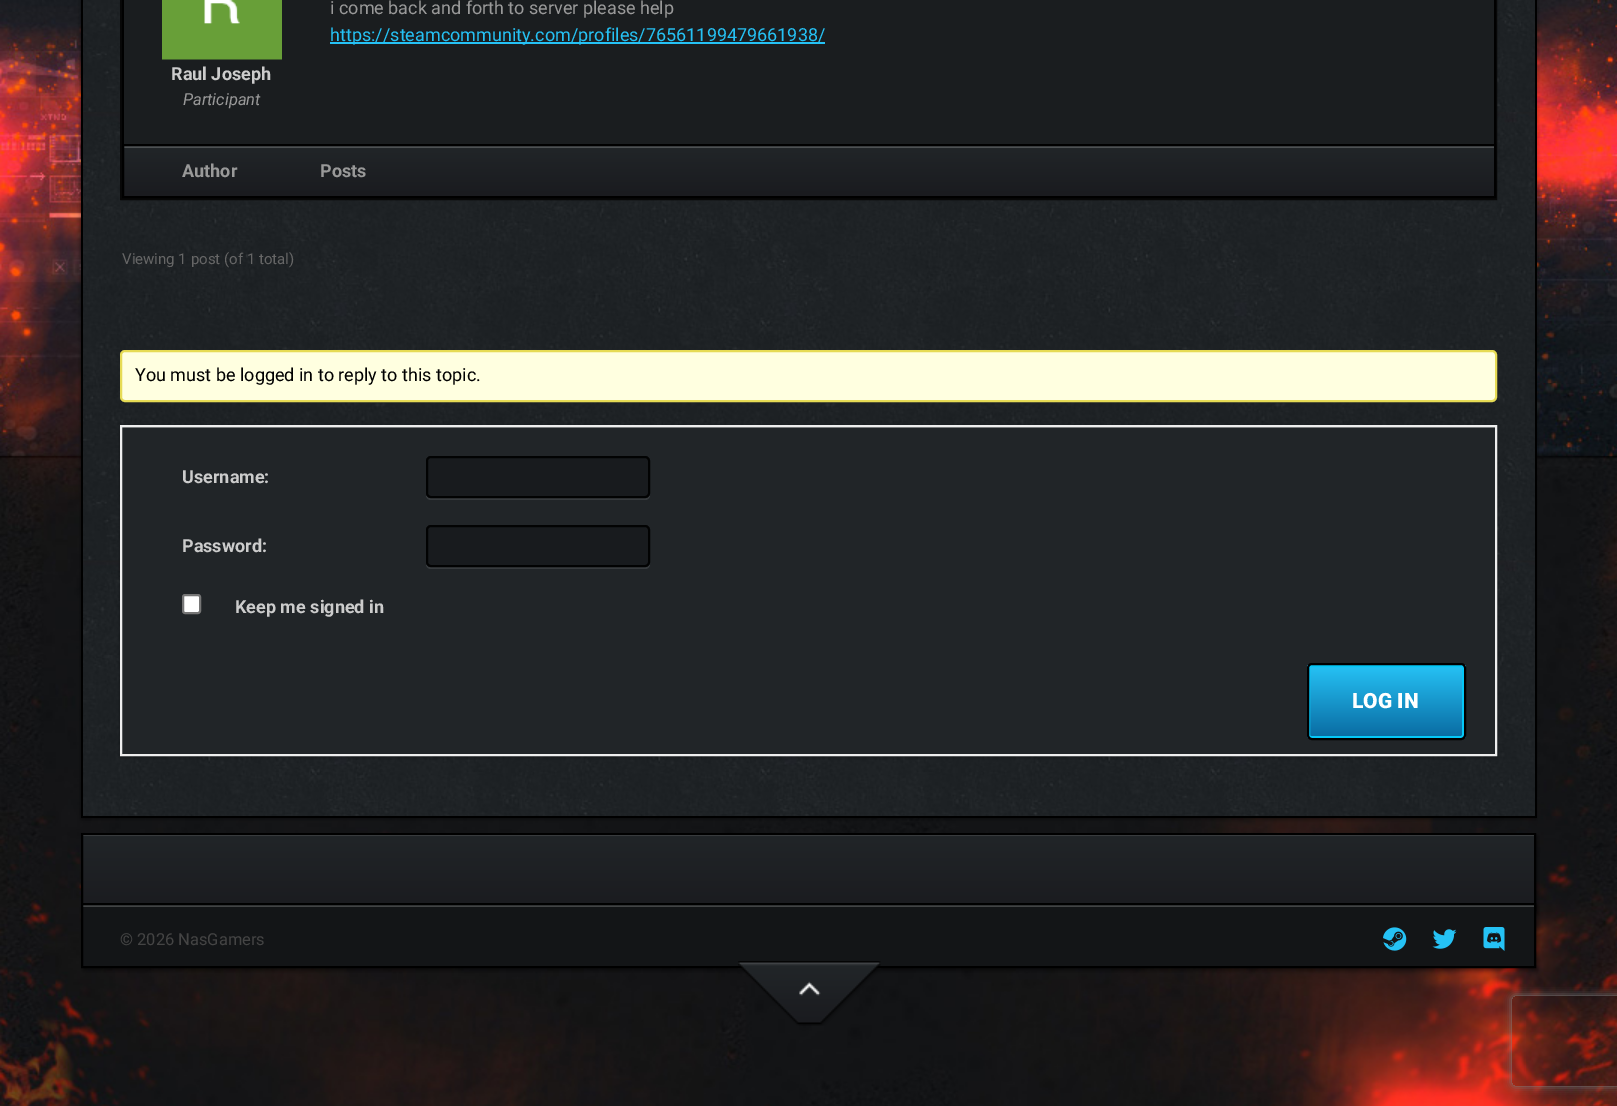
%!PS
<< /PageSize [1617 1106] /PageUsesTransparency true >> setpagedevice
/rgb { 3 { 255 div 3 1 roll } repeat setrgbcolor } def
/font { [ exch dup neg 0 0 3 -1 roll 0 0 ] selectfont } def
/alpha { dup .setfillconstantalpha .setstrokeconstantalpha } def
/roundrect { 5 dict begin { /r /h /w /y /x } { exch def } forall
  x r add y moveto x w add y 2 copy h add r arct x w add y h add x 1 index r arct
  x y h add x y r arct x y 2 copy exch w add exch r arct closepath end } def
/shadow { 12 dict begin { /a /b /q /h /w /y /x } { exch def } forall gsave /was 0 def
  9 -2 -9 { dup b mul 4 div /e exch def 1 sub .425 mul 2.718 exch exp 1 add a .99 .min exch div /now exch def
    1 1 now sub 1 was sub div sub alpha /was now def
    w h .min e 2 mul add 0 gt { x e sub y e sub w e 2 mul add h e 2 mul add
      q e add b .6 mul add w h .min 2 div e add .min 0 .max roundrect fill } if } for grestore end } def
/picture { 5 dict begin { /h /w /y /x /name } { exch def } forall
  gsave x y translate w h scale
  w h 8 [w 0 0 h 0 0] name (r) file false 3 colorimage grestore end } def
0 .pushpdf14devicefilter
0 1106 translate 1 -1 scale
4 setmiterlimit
255 255 255 rgb
0 0 1617 1106 rectfill
(img/1.rgb) 0 0 1617 1106 picture
0 0 0 rgb
81 -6 1455 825 0 2 0.5 shadow
(img/2.rgb) 83 0 1452 816 picture
[
  [1535 0 2 818 0 0 0]
  [81 816 1455 2 0 0 0]
  [81 0 2 818 0 0 0]
] { aload pop rgb rectfill } forall
7 7 7 rgb
2 setlinewidth
121 -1 1375 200 rectstroke
[
  [124 0 1370 144 26 29 31]
  [1494 0 2 144 0 0 0]
  [122 0 2 144 0 0 0]
  [330 42 495 2 37 194 245]
] { aload pop rgb rectfill } forall
(img/3.rgb) 162 0 120 60 picture
gsave 124 148 moveto 1494 148 lineto 1494 196 lineto 124 196 lineto closepath clip newpath
<< /ShadingType 2 /ColorSpace /DeviceRGB /Coords [809 197 809 146] /Extend [true true] /Function << /FunctionType 2 /Domain [0 1] /C0 [0.102 0.106 0.122] /C1 [0.129 0.145 0.157] /N 1 >> >> shfill grestore
77 81 83 rgb
123 146 1371 2 rectfill
0 0 0 rgb
123 145 1372 52 rectstroke
255 255 224 rgb
121 351 1375 50 4 roundrect gsave fill grestore
230 219 85 rgb
stroke
0 0 0 rgb
120 426 1377 332 0 2 0.3 shadow
33 37 40 rgb
122 428 1373 326 rectfill
77 81 83 rgb
122 427 1374 1 rectfill
238 238 238 rgb
121 426 1375 329 rectstroke
55 59 62 rgb
426 494 moveto 426 495 lineto 426 498 428 500 431 500 curveto 645 500 lineto 648 500 650 498 650 495 curveto 650 463 lineto 650 461 lineto 650 494 lineto 650 496 647 498 645 498 curveto 430 498 lineto 428 498 426 496 426 494 curveto closepath fill
24 27 30 rgb
426 456 224 42 5 roundrect fill
0.9 alpha
0 0 0 rgb
427 457 222 40 4 roundrect stroke
1 alpha
55 59 62 rgb
426 562 moveto 426 564 lineto 426 567 428 569 431 569 curveto 645 569 lineto 648 569 650 567 650 564 curveto 650 532 lineto 650 530 lineto 650 562 lineto 650 565 647 567 645 567 curveto 430 567 lineto 428 567 426 565 426 562 curveto closepath fill
24 27 30 rgb
426 525 224 42 5 roundrect fill
0.9 alpha
0 0 0 rgb
427 526 222 40 4 roundrect stroke
1 alpha
255 255 255 rgb
183 595 17 18 2 roundrect gsave fill grestore
118 118 118 rgb
stroke
gsave
1307 663 159 77 5 roundrect clip newpath
gsave 1307 665 moveto 1466 665 lineto 1466 738 lineto 1307 738 lineto closepath clip newpath
<< /ShadingType 2 /ColorSpace /DeviceRGB /Coords [1386 738 1386 665] /Extend [true true] /Function << /FunctionType 2 /Domain [0 1] /C0 [0.035 0.416 0.631] /C1 [0.149 0.765 0.965] /N 1 >> >> shfill grestore
grestore
5 199 247 rgb
1309 666 154 71 2 roundrect stroke
0 0 0 rgb
1308 664 157 75 4 roundrect stroke
83 836 1455 78 0 2 0.4 shadow
gsave 83 836 moveto 1534 836 lineto 1534 903 lineto 83 903 lineto closepath clip newpath
<< /ShadingType 2 /ColorSpace /DeviceRGB /Coords [809 909 809 834] /Extend [true true] /Function << /FunctionType 2 /Domain [0 1] /C0 [0.102 0.106 0.122] /C1 [0.129 0.145 0.157] /N 1 >> >> shfill grestore
77 81 83 rgb
83 835 1452 1 rectfill
0 0 0 rgb
82 834 1453 76 rectstroke
83 906 1455 65 0 2 0.4 shadow
19 21 23 rgb
83 907 1451 59 rectfill
66 68 69 rgb
83 905 1452 2 rectfill
0 0 0 rgb
82 904 1453 63 rectstroke
(img/4.rgb) 1383 927 24 24 picture
(img/5.rgb) 1432 929 25 20 picture
(img/6.rgb) 1483 927 22 24 picture
(img/7.rgb) 738 961 143 65 picture
gsave
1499 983 moveto 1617 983 lineto 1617 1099 lineto 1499 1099 lineto closepath 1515 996 moveto 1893 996 lineto 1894.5 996 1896 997.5 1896 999 curveto 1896 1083 lineto 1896 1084.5 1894.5 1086 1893 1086 curveto 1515 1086 lineto 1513.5 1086 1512 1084.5 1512 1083 curveto 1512 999 lineto 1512 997.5 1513.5 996 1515 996 curveto closepath eoclip newpath
128 128 128 rgb
1512 996 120 90 3 4 1 shadow
grestore
/Roboto-Regular 18 font
153 153 153 rgb
330 14 moveto (i come back and forth to server please help) show
37 194 245 rgb
330 41 moveto (https://steamcommunity.com/profiles/76561199479661938/) show
/Roboto-Bold 18 font
204 204 204 rgb
171 80 moveto (Raul Joseph) show
/Roboto-Italic 16.5 font
153 153 153 rgb
183 105 moveto (Participant) show
/Roboto-Bold 18 font
182 177 moveto (Author) show
320 177 moveto (Posts) show
/Roboto-Regular 15 font
102 102 102 rgb
122 264 moveto (Viewing 1 post \(of 1 total\)) show
/Roboto-Regular 18 font
0 0 0 rgb
135 381 moveto (You must be logged in to reply to this topic.) show
/Roboto-Bold 18 font
204 204 204 rgb
[
  [(Username:) 182 483]
  [(Password:) 182 552]
  [(Keep me signed in) 235 613]
] { aload pop moveto show } forall
/Roboto-Black 21 font
255 255 255 rgb
1352 708 moveto (LOG IN) show
/Roboto-Regular 16.5 font
68 68 68 rgb
120 945 moveto (© 2026 NasGamers) show
.poppdf14devicefilter showpage
